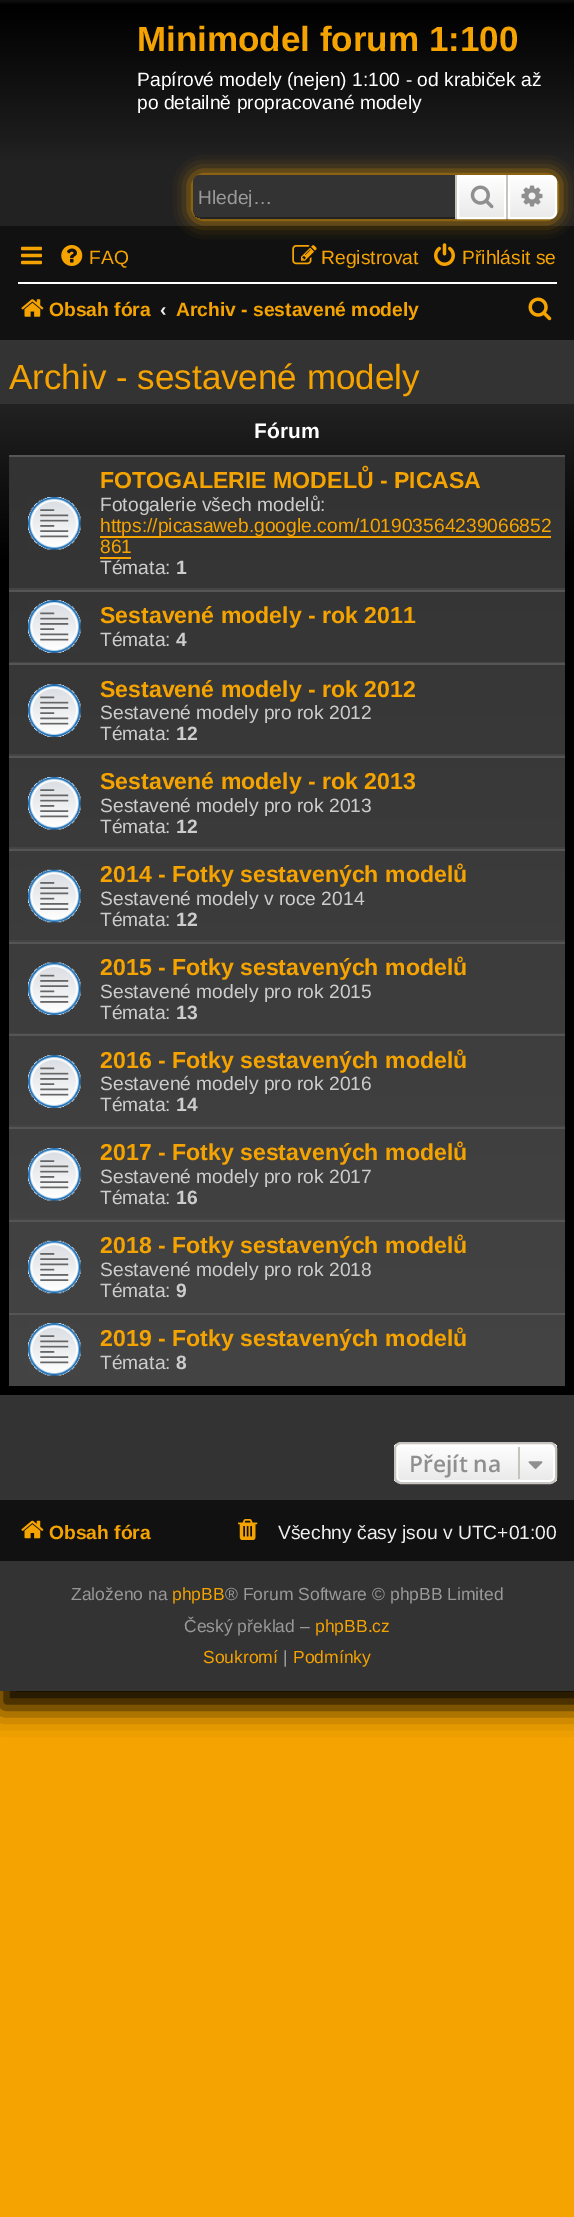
%!PS
<< /PageSize [574 2217] /PageUsesTransparency true >> setpagedevice
/rgb { 3 { 255 div 3 1 roll } repeat setrgbcolor } def
/font { [ exch dup neg 0 0 3 -1 roll 0 0 ] selectfont } def
/alpha { dup .setfillconstantalpha .setstrokeconstantalpha } def
/roundrect { 5 dict begin { /r /h /w /y /x } { exch def } forall
  x r add y moveto x w add y 2 copy h add r arct x w add y h add x 1 index r arct
  x y h add x y r arct x y 2 copy exch w add exch r arct closepath end } def
/shadow { 12 dict begin { /a /b /q /h /w /y /x } { exch def } forall gsave /was 0 def
  9 -2 -9 { dup b mul 4 div /e exch def 1 sub .425 mul 2.718 exch exp 1 add a .99 .min exch div /now exch def
    1 1 now sub 1 was sub div sub alpha /was now def
    w h .min e 2 mul add 0 gt { x e sub y e sub w e 2 mul add h e 2 mul add
      q e add b .6 mul add w h .min 2 div e add .min 0 .max roundrect fill } if } for grestore end } def
/picture { 5 dict begin { /h /w /y /x /name } { exch def } forall
  gsave x y translate w h scale
  w h 8 [w 0 0 h 0 0] name (r) file false 3 colorimage grestore end } def
0 .pushpdf14devicefilter
0 2217 translate 1 -1 scale
4 setmiterlimit
245 163 0 rgb
0 0 574 2217 rectfill
0 0 0 rgb
0 0 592 1708 0 13 1 shadow
51 51 51 rgb
0 340 574 1351 rectfill
gsave 0 0 moveto 574 0 lineto 574 226 lineto 0 226 lineto closepath clip newpath
<< /ShadingType 2 /ColorSpace /DeviceRGB /Coords [287 0 287 228] /Extend [true true] /Function << /FunctionType 3 /Domain [0 1] /Functions [<< /FunctionType 2 /Domain [0 1] /C0 [0.067 0.067 0.067] /C1 [0 0 0] /N 1 >> << /FunctionType 2 /Domain [0 1] /C0 [0 0 0] /C1 [0.133 0.133 0.133] /N 1 >> << /FunctionType 2 /Domain [0 1] /C0 [0.133 0.133 0.133] /C1 [0.133 0.133 0.133] /N 1 >>] /Bounds [0.02 0.71] /Encode [0 1 0 1 0 1] >> >> shfill grestore
17 17 17 rgb
0 226 574 114 rectfill
gsave
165 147 moveto 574 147 lineto 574 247 lineto 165 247 lineto closepath 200 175 moveto 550 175 lineto 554 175 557 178 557 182 curveto 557 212 lineto 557 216 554 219 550 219 curveto 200 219 lineto 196 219 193 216 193 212 curveto 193 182 lineto 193 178 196 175 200 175 curveto closepath eoclip newpath
245 163 0 rgb
193 175 364 44 7 9 1 shadow
grestore
51 51 51 rgb
200 175 moveto 455 175 lineto 455 217 lineto 200 217 lineto 196 217 193 214 193 210 curveto 193 182 lineto 193 178 196 175 200 175 curveto closepath fill
gsave 459 177 moveto 504 177 lineto 504 217 lineto 459 217 lineto closepath clip newpath
<< /ShadingType 2 /ColorSpace /DeviceRGB /Coords [481 175 481 219] /Extend [true true] /Function << /FunctionType 2 /Domain [0 1] /C0 [1 1 1] /C1 [0.914 0.914 0.914] /N 1 >> >> shfill grestore
255 255 255 rgb
2 setlinewidth
458 176 47 42 rectstroke
199 195 191 rgb
506 175 2 44 rectfill
455 175 2 44 rectfill
(img/1.rgb) 470 185 24 24 picture
gsave 509 176 moveto 550 176 lineto 553.5 176 556 178.5 556 182 curveto 556 212 lineto 556 215.5 553.5 218 550 218 curveto 509 218 lineto closepath clip newpath
<< /ShadingType 2 /ColorSpace /DeviceRGB /Coords [532 175 532 219] /Extend [true true] /Function << /FunctionType 2 /Domain [0 1] /C0 [1 1 1] /C1 [0.914 0.914 0.914] /N 1 >> >> shfill grestore
255 255 255 rgb
509 176 moveto 550 176 lineto 553.5 176 556 178.5 556 182 curveto 556 212 lineto 556 215.5 553.5 218 550 218 curveto 509 218 lineto closepath stroke
(img/2.rgb) 521 185 22 22 picture
(img/3.rgb) 21 246 21 19 picture
(img/4.rgb) 61 245 22 21 picture
(img/5.rgb) 292 245 25 20 picture
(img/6.rgb) 434 243 21 23 picture
18 282 539 2 rectfill
(img/7.rgb) 21 299 23 18 picture
(img/8.rgb) 528 297 24 24 picture
gsave 0 404 moveto 574 404 lineto 574 1395 lineto 0 1395 lineto closepath clip newpath
<< /ShadingType 2 /ColorSpace /DeviceRGB /Coords [287 404 287 1395] /Extend [true true] /Function << /FunctionType 3 /Domain [0 1] /Functions [<< /FunctionType 2 /Domain [0 1] /C0 [0.133 0.133 0.133] /C1 [0 0 0] /N 1 >> << /FunctionType 2 /Domain [0 1] /C0 [0 0 0] /C1 [0 0 0] /N 1 >>] /Bounds [0.16] /Encode [0 1 0 1] >> >> shfill grestore
gsave 9 457 moveto 565 457 lineto 565 1386 lineto 9 1386 lineto closepath clip newpath
<< /ShadingType 2 /ColorSpace /DeviceRGB /Coords [287 455 287 1386] /Extend [true true] /Function << /FunctionType 2 /Domain [0 1] /C0 [0.2 0.2 0.2] /C1 [0.267 0.267 0.267] /N 1 >> >> shfill grestore
85 85 85 rgb
9 455 556 2 rectfill
68 68 68 rgb
9 588 556 2 rectfill
(img/9.rgb) 28 497 53 53 picture
[
  [100 536 451 2 245 163 0]
  [100 557 31 2 245 163 0]
  [9 590 556 2 85 85 85]
  [9 662 556 1 68 68 68]
] { aload pop rgb rectfill } forall
(img/10.rgb) 28 600 53 53 picture
85 85 85 rgb
9 663 556 2 rectfill
68 68 68 rgb
9 754 556 2 rectfill
(img/11.rgb) 28 684 53 53 picture
85 85 85 rgb
9 756 556 2 rectfill
68 68 68 rgb
9 847 556 2 rectfill
(img/12.rgb) 28 777 53 53 picture
85 85 85 rgb
9 849 556 2 rectfill
68 68 68 rgb
9 940 556 2 rectfill
(img/13.rgb) 28 869 53 54 picture
85 85 85 rgb
9 942 556 2 rectfill
68 68 68 rgb
9 1033 556 1 rectfill
(img/14.rgb) 28 962 53 53 picture
85 85 85 rgb
9 1034 556 2 rectfill
68 68 68 rgb
9 1125 556 2 rectfill
(img/15.rgb) 28 1055 53 53 picture
85 85 85 rgb
9 1127 556 2 rectfill
68 68 68 rgb
9 1218 556 2 rectfill
(img/16.rgb) 28 1148 53 53 picture
85 85 85 rgb
9 1220 556 2 rectfill
(img/17.rgb) 28 1240 53 54 picture
9 1313 556 2 rectfill
(img/18.rgb) 28 1323 53 53 picture
gsave
394 1442 163 42 7 roundrect clip newpath
gsave 394 1444 moveto 557 1444 lineto 557 1482 lineto 394 1482 lineto closepath clip newpath
<< /ShadingType 2 /ColorSpace /DeviceRGB /Coords [475 1444 475 1482] /Extend [true true] /Function << /FunctionType 2 /Domain [0 1] /C0 [1 1 1] /C1 [0.914 0.914 0.914] /N 1 >> >> shfill grestore
grestore
255 255 255 rgb
397 1445 157 36 4 roundrect stroke
199 195 191 rgb
395 1443 161 40 6 roundrect stroke
518 1447 2 32 rectfill
(img/19.rgb) 528 1461 15 8 picture
17 17 17 rgb
0 1500 574 61 rectfill
(img/20.rgb) 21 1520 23 19 picture
(img/21.rgb) 238 1519 20 21 picture
/LiberationSans-Bold 35 font
245 163 0 rgb
137 51 moveto (Minimodel forum 1:100) show
/LiberationSans-Regular 19.25 font
255 255 255 rgb
137 86 moveto (Papírové modely \(nejen\) 1:100 - od krabiček až) show
137 109 moveto (po detailně propracované modely) show
gsave
198 186 245 21 rectclip
153 153 153 rgb
198 204 moveto (Hledej…) show
grestore
245 163 0 rgb
[
  [(FAQ) 89 264]
  [(Registrovat) 321 264]
  [(Přihlásit se) 462 264]
] { aload pop moveto show } forall
/LiberationSans-Bold 19.25 font
49 316 moveto (Obsah fóra) show
238 238 238 rgb
160 316 moveto (‹) show
245 163 0 rgb
176 316 moveto (Archiv - sestavené modely) show
/LiberationSans-Regular 35 font
9 389 moveto (Archiv - sestavené modely) show
/LiberationSans-Bold 21 font
255 255 255 rgb
254 438 moveto (Fórum) show
/LiberationSans-Bold 23.1 font
245 163 0 rgb
100 488 moveto (FOTOGALERIE MODELŮ - PICASA) show
/LiberationSans-Regular 19.25 font
204 204 204 rgb
100 511 moveto (Fotogalerie všech modelů:) show
245 163 0 rgb
100 532 moveto (https://picasaweb.google.com/101903564239066852) show
100 553 moveto (861) show
204 204 204 rgb
100 574 moveto (Témata:) show
/LiberationSans-Bold 19.25 font
176 574 moveto (1) show
/LiberationSans-Bold 23.1 font
245 163 0 rgb
100 623 moveto (Sestavené modely - rok 2011) show
/LiberationSans-Regular 19.25 font
204 204 204 rgb
100 646 moveto (Témata:) show
/LiberationSans-Bold 19.25 font
176 646 moveto (4) show
/LiberationSans-Bold 23.1 font
245 163 0 rgb
100 697 moveto (Sestavené modely - rok 2012) show
/LiberationSans-Regular 19.25 font
204 204 204 rgb
100 719 moveto (Sestavené modely pro rok 2012) show
100 740 moveto (Témata:) show
/LiberationSans-Bold 19.25 font
176 740 moveto (12) show
/LiberationSans-Bold 23.1 font
245 163 0 rgb
100 789 moveto (Sestavené modely - rok 2013) show
/LiberationSans-Regular 19.25 font
204 204 204 rgb
100 812 moveto (Sestavené modely pro rok 2013) show
100 833 moveto (Témata:) show
/LiberationSans-Bold 19.25 font
176 833 moveto (12) show
/LiberationSans-Bold 23.1 font
245 163 0 rgb
100 882 moveto (2014 - Fotky sestavených modelů) show
/LiberationSans-Regular 19.25 font
204 204 204 rgb
100 905 moveto (Sestavené modely v roce 2014) show
100 926 moveto (Témata:) show
/LiberationSans-Bold 19.25 font
176 926 moveto (12) show
/LiberationSans-Bold 23.1 font
245 163 0 rgb
100 975 moveto (2015 - Fotky sestavených modelů) show
/LiberationSans-Regular 19.25 font
204 204 204 rgb
100 998 moveto (Sestavené modely pro rok 2015) show
100 1019 moveto (Témata:) show
/LiberationSans-Bold 19.25 font
176 1019 moveto (13) show
/LiberationSans-Bold 23.1 font
245 163 0 rgb
100 1068 moveto (2016 - Fotky sestavených modelů) show
/LiberationSans-Regular 19.25 font
204 204 204 rgb
100 1090 moveto (Sestavené modely pro rok 2016) show
100 1111 moveto (Témata:) show
/LiberationSans-Bold 19.25 font
176 1111 moveto (14) show
/LiberationSans-Bold 23.1 font
245 163 0 rgb
100 1160 moveto (2017 - Fotky sestavených modelů) show
/LiberationSans-Regular 19.25 font
204 204 204 rgb
100 1183 moveto (Sestavené modely pro rok 2017) show
100 1204 moveto (Témata:) show
/LiberationSans-Bold 19.25 font
176 1204 moveto (16) show
/LiberationSans-Bold 23.1 font
245 163 0 rgb
100 1253 moveto (2018 - Fotky sestavených modelů) show
/LiberationSans-Regular 19.25 font
204 204 204 rgb
100 1276 moveto (Sestavené modely pro rok 2018) show
100 1297 moveto (Témata:) show
/LiberationSans-Bold 19.25 font
176 1297 moveto (9) show
/LiberationSans-Bold 23.1 font
245 163 0 rgb
100 1346 moveto (2019 - Fotky sestavených modelů) show
/LiberationSans-Regular 19.25 font
204 204 204 rgb
100 1369 moveto (Témata:) show
/LiberationSans-Bold 19.25 font
176 1369 moveto (8) show
/OpenSans-SemiBold 22.75 font
143 143 143 rgb
409 1472 moveto (Přejít na) show
/LiberationSans-Bold 19.25 font
245 163 0 rgb
49 1539 moveto (Obsah fóra) show
/LiberationSans-Regular 19.25 font
238 238 238 rgb
278 1539 moveto (Všechny časy jsou v UTC+01:00) show
/LiberationSans-Regular 17.5 font
153 153 153 rgb
71 1600 moveto (Založeno na) show
245 163 0 rgb
172 1600 moveto (phpBB) show
153 153 153 rgb
225 1600 moveto (® Forum Software © phpBB Limited) show
184 1632 moveto (Český překlad –) show
245 163 0 rgb
315 1632 moveto (phpBB.cz) show
203 1663 moveto (Soukromí) show
153 153 153 rgb
283 1663 moveto (|) show
245 163 0 rgb
293 1663 moveto (Podmínky) show
.poppdf14devicefilter showpage
